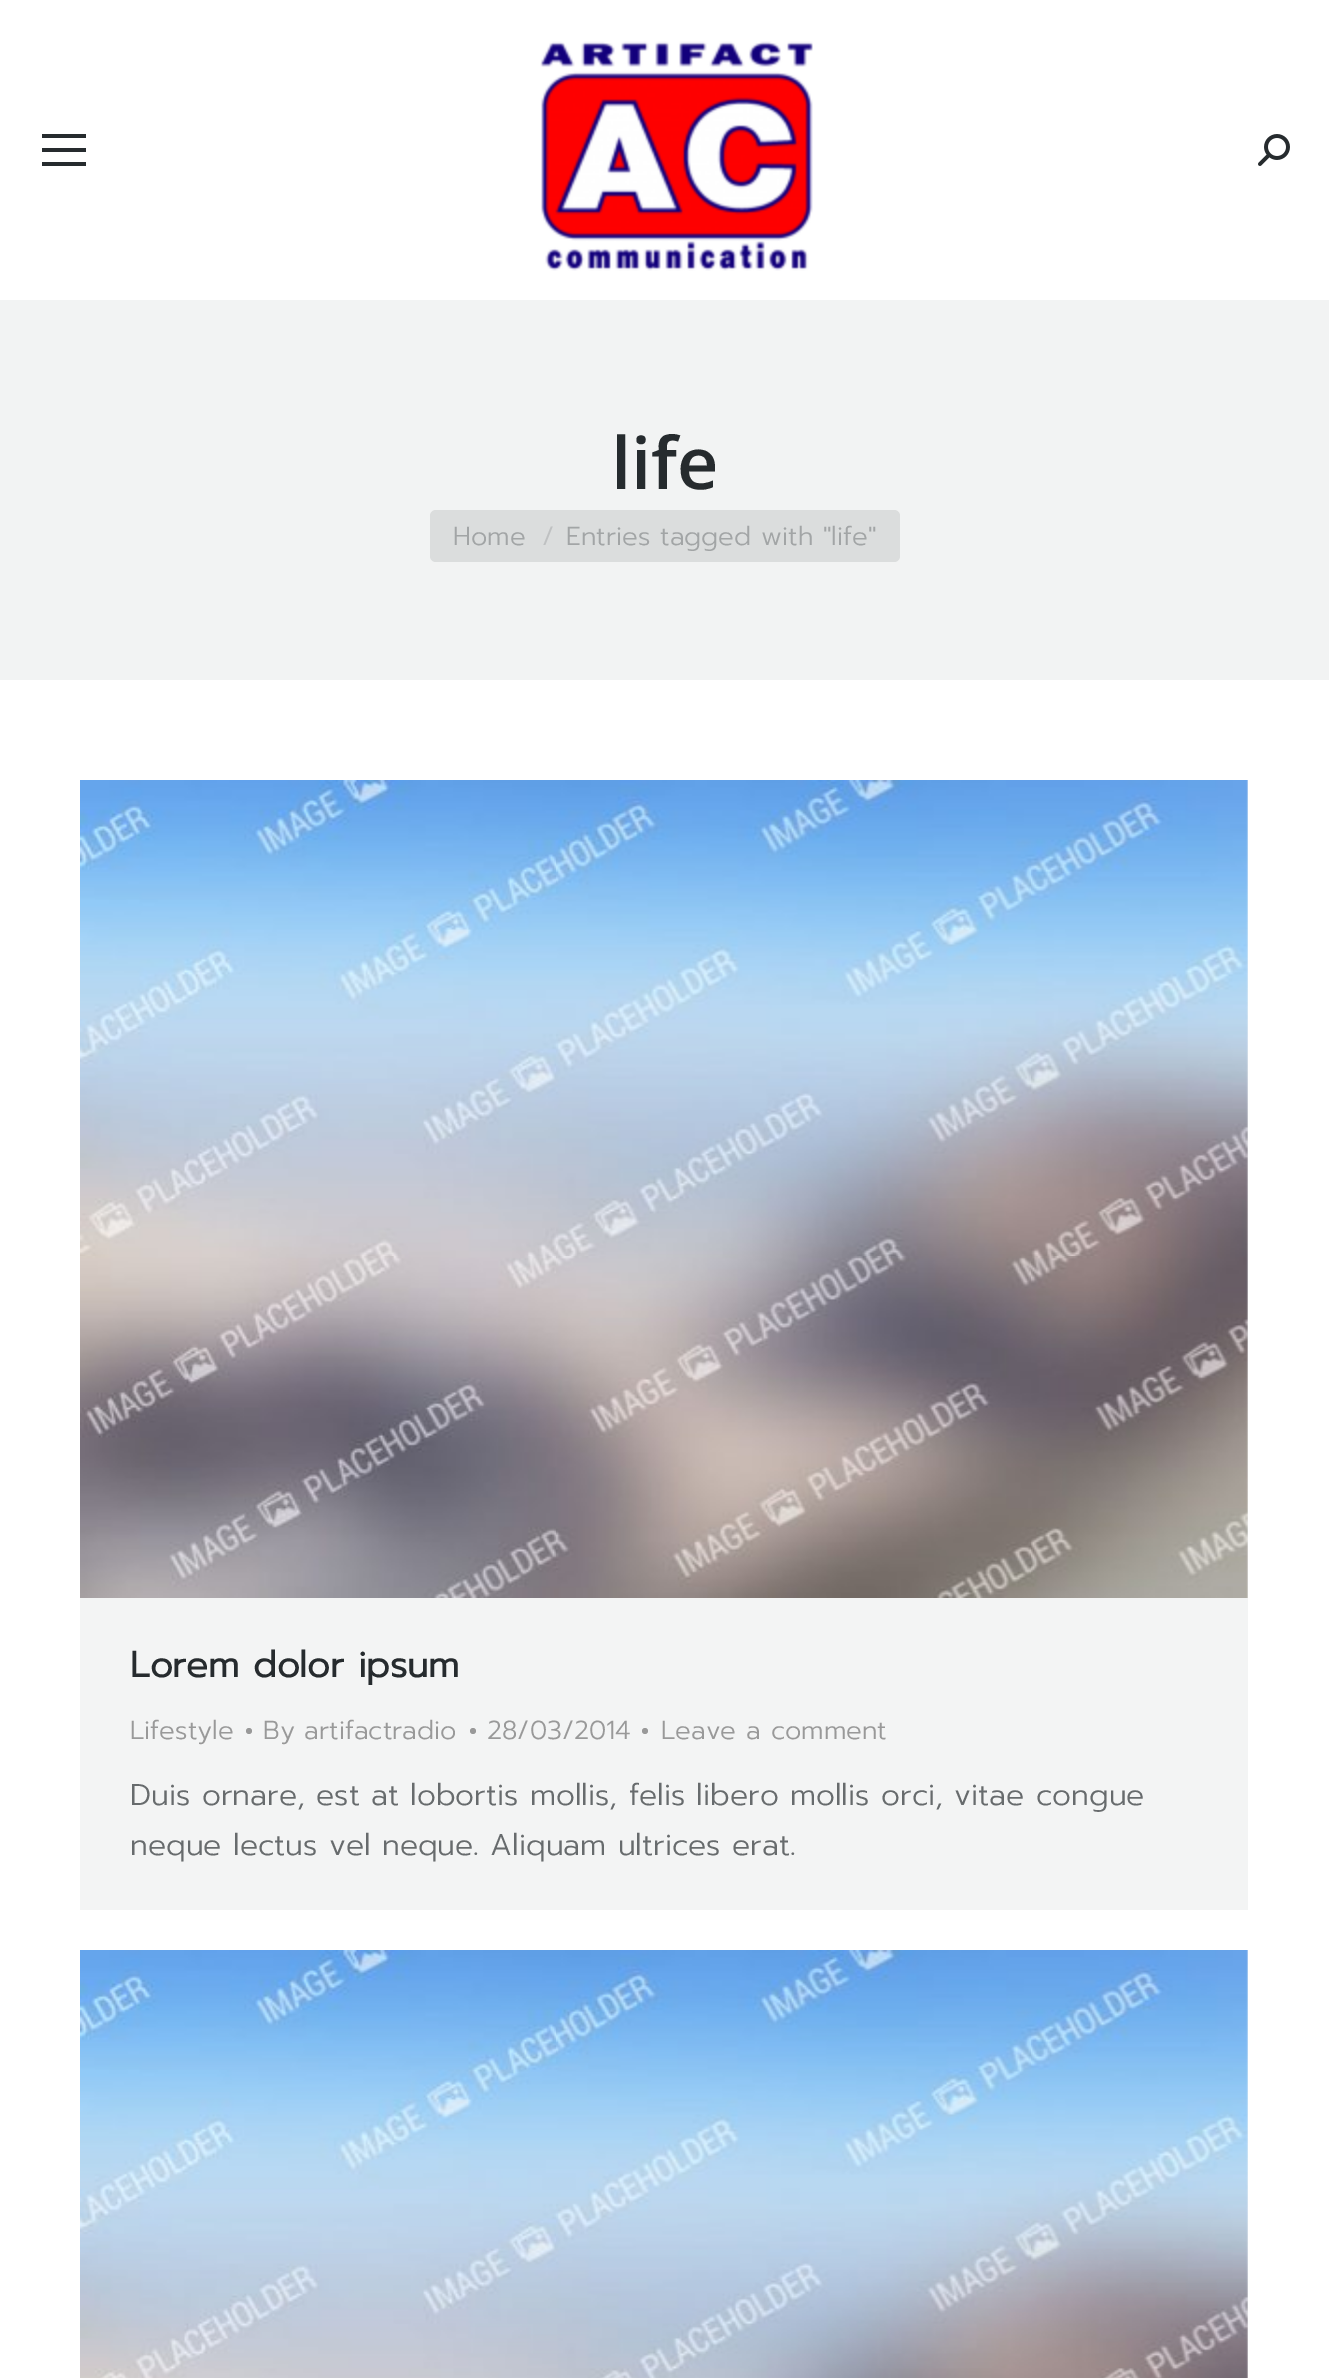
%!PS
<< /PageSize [1329 2378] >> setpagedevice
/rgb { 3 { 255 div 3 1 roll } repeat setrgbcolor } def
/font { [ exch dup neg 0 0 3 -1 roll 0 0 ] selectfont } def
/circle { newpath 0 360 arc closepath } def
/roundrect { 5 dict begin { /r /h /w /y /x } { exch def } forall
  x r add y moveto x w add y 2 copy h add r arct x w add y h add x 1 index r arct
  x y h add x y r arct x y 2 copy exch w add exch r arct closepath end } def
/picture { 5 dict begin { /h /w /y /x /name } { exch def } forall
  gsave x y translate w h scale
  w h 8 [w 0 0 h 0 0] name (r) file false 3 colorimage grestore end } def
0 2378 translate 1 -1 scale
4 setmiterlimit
255 255 255 rgb
0 0 1329 2378 rectfill
[
  [42 134 44 4 38 43 46]
  [42 148 44 4 38 43 46]
  [42 162 44 4 38 43 46]
] { aload pop rgb rectfill } forall
(img/1.rgb) 540 41 273 230 picture
(img/2.rgb) 1258 134 32 32 picture
242 243 243 rgb
0 300 1329 380 rectfill
219 221 221 rgb
430 510 470 52 6 roundrect fill
243 244 244 rgb
80 780 1168 1130 rectfill
(img/3.rgb) 80 780 1168 818 picture
153 153 153 rgb
249 1731 3 circle fill
473 1731 3 circle fill
645 1731 3 circle fill
243 244 244 rgb
1246 1950 2 428 rectfill
(img/4.rgb) 80 1950 1168 428 picture
/OpenSans-SemiBold 72 font
38 43 46 rgb
611 489 moveto (life) show
/Prompt-Light 26 font
162 165 166 rgb
453 545 moveto (Home) show
191 193 194 rgb
542 545 moveto (/) show
162 165 166 rgb
566 545 moveto (Entries tagged with "life") show
/Prompt-Bold 36 font
38 43 46 rgb
130 1677 moveto (Lorem dolor ipsum) show
/Prompt-Light 26 font
153 153 153 rgb
[
  [(Lifestyle) 130 1739]
  [(By artifactradio) 263 1739]
  [(28/03/2014) 487 1739]
  [(Leave a comment) 661 1739]
] { aload pop moveto show } forall
/Prompt-Light 30 font
103 107 109 rgb
130 1805 moveto (Duis ornare, est at lobortis mollis, felis libero mollis orci, vitae congue) show
130 1855 moveto (neque lectus vel neque. Aliquam ultrices erat.) show
showpage
